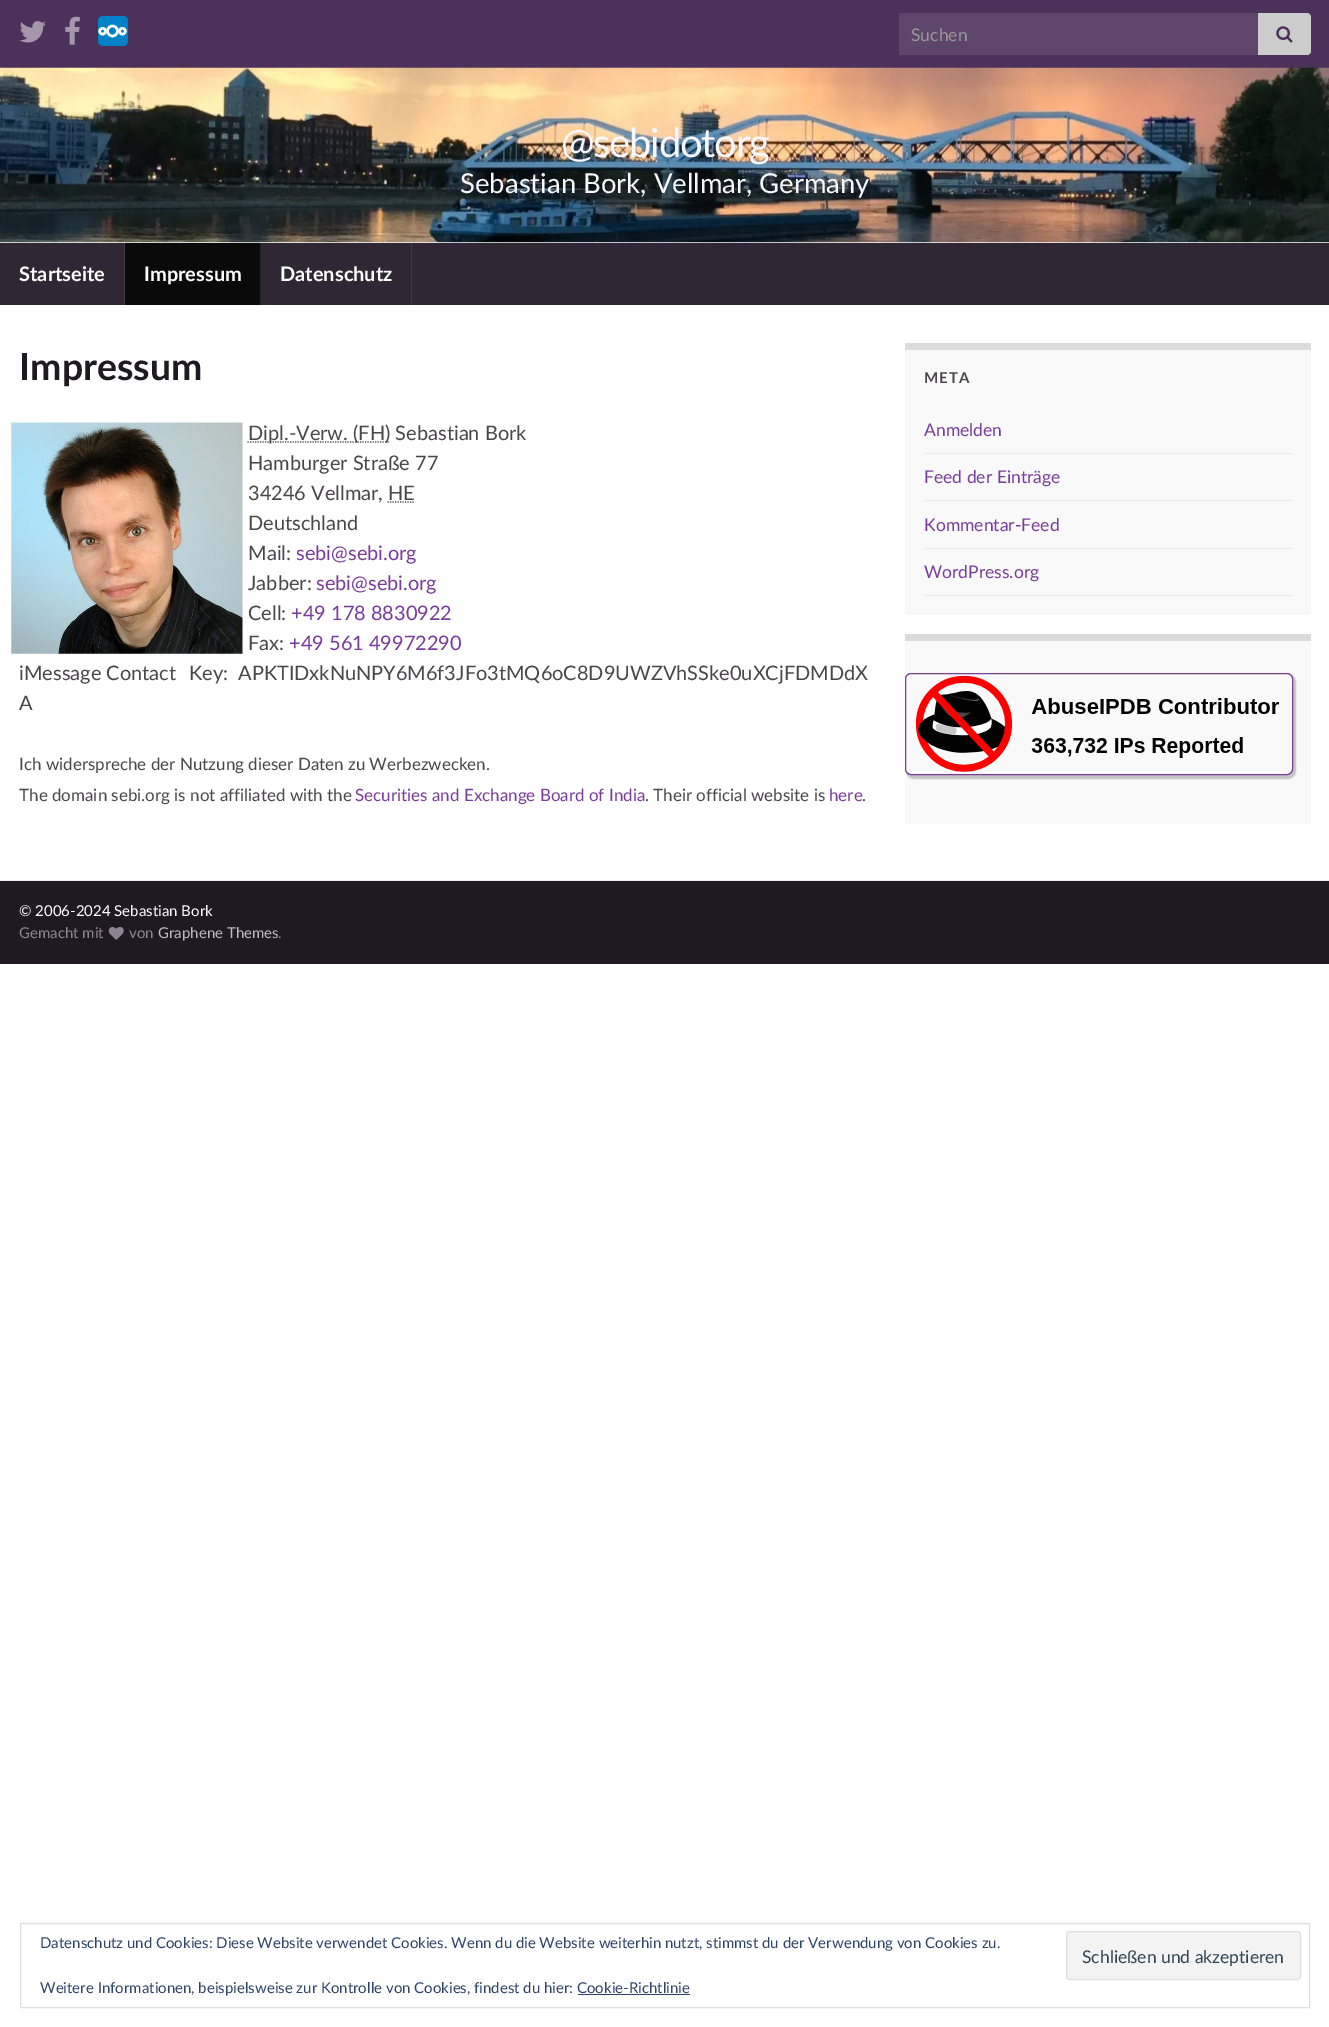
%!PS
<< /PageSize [1329 2027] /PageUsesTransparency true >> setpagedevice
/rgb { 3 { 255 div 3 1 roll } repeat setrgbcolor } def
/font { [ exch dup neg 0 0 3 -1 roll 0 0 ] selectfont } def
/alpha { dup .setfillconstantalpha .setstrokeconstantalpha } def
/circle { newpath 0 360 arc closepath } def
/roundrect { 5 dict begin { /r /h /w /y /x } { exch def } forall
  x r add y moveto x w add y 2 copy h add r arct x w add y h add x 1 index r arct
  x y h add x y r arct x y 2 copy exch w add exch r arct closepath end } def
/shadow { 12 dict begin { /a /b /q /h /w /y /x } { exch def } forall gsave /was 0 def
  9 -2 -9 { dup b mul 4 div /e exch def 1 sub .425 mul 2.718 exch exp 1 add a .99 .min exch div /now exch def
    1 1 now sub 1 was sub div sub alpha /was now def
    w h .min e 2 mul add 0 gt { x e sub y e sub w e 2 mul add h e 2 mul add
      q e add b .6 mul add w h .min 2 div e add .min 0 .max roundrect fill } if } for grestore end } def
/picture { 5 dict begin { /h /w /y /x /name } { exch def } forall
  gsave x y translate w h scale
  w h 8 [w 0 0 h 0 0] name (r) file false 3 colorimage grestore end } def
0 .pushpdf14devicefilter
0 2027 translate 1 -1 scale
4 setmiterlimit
255 255 255 rgb
0 0 1329 2027 rectfill
76 49 90 rgb
0 0 1329 68 rectfill
(img/1.rgb) 19 21 27 22 picture
(img/2.rgb) 65 16 15 29 picture
0 130 201 rgb
98 16 30 30 5 roundrect fill
255 255 255 rgb
2.5 setlinewidth
102.6 31.2 2.9 circle stroke
122.4 31.2 2.9 circle stroke
112.5 31 5 circle stroke
94 70 107 rgb
899 13 359 42 rectfill
204 204 204 rgb
1258 13 moveto 1307 13 lineto 1309 13 1311 15 1311 17 curveto 1311 51 lineto 1311 53 1309 55 1307 55 curveto 1258 55 lineto closepath fill
(img/3.rgb) 1276 26 17 17 picture
(img/4.rgb) 0 67 1329 176 picture
[
  [0 243 1329 62 47 39 51]
  [124 243 1 62 68 61 71]
  [125 243 135 62 11 10 11]
  [260 243 1 62 35 35 35]
  [411 243 1 62 68 61 71]
] { aload pop rgb rectfill } forall
(img/5.rgb) 11 422 232 232 picture
74 71 75 rgb
1.2 setlinewidth
[1.25 1.25] 0 setdash
247.5 442 moveto 390 442 lineto stroke
387.5 502 moveto 414.5 502 lineto stroke
[
  [905 350 406 265 249 249 249]
  [905 343 406 7 219 219 219]
  [924 453 369 1 233 233 233]
  [924 500 369 1 233 233 233]
  [924 548 369 1 233 233 233]
  [924 595 369 1 233 233 233]
  [905 641 406 183 249 249 249]
  [905 634 406 7 219 219 219]
] { aload pop rgb rectfill } forall
gsave
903 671 moveto 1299 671 lineto 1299 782 lineto 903 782 lineto closepath 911 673 moveto 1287 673 lineto 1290.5 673 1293 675.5 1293 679 curveto 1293 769 lineto 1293 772.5 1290.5 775 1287 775 curveto 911 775 lineto 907.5 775 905 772.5 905 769 curveto 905 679 lineto 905 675.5 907.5 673 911 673 curveto closepath eoclip newpath
0 0 0 rgb
906 674 390 105 8 0.5 0.2 shadow
grestore
120 61 152 rgb
1 setlinewidth
[] 0 setdash
905.5 673.5 387 101 5.5 roundrect stroke
(img/6.rgb) 916 675 364 97 picture
238 238 238 rgb
0 880 1329 1 rectfill
31 26 34 rgb
0 881 1329 83 rectfill
(img/7.rgb) 108 927 16 13 picture
222 222 222 rgb
20.5 1923.5 1289 84 rectstroke
243 243 243 rgb
1066.5 1931.5 234 48 3.5 roundrect gsave fill grestore
222 222 222 rgb
stroke
46 68 103 rgb
578 1994 112 1 rectfill
/Lato-Regular 17.5 font
153 153 153 rgb
911 41 moveto (Suchen) show
/Lato-Regular 40 font
247 247 255 rgb
561 157 moveto -1.25 0 (@sebidotorg) ashow
/Lato-Regular 27.5 font
460 193 moveto (Sebastian Bork, Vellmar, Germany) show
/Lato-Bold 20 font
255 255 255 rgb
[
  [(Startseite) 19 281]
  [(Impressum) 144 281]
  [(Datenschutz) 280 281]
] { aload pop moveto show } forall
/Lato-Bold 37.5 font
31 26 34 rgb
19 380 moveto (Impressum) show
/Lato-Regular 20 font
74 71 75 rgb
[
  [(Dipl.-Verw. \(FH\) Sebastian Bork) 248 440]
  [(Hamburger Straße 77) 248 470]
  [(34246 Vellmar, HE) 248 500]
  [(Deutschland) 248 530]
  [(Mail:) 248 560]
] { aload pop moveto show } forall
120 61 152 rgb
296 560 moveto (sebi@sebi.org) show
74 71 75 rgb
248 590 moveto (Jabber:) show
120 61 152 rgb
316 590 moveto (sebi@sebi.org) show
74 71 75 rgb
248 620 moveto (Cell:) show
120 61 152 rgb
291 620 moveto (+49 178 8830922) show
74 71 75 rgb
248 650 moveto (Fax:) show
120 61 152 rgb
289 650 moveto (+49 561 49972290) show
74 71 75 rgb
19 680 moveto (iMessage Contact) show
189 680 moveto (Key:) show
238 680 moveto (APKTIDxkNuNPY6M6f3JFo3tMQ6oC8D9UWZVhSSke0uXCjFDMDdX) show
19 710 moveto (A) show
/Lato-Regular 17 font
19 770 moveto (Ich widerspreche der Nutzung dieser Daten zu Werbezwecken.) show
19 801 moveto (The domain sebi.org is not affiliated with the) show
120 61 152 rgb
355 801 moveto (Securities and Exchange Board of India) show
74 71 75 rgb
645 801 moveto (. Their official website is) show
120 61 152 rgb
829 801 moveto (here) show
74 71 75 rgb
862 801 moveto (.) show
/Lato-Bold 15 font
924 383 moveto 1 0 (META) ashow
/Lato-Regular 17.5 font
120 61 152 rgb
[
  [(Anmelden) 924 436]
  [(Feed der Einträge) 924 483]
  [(Kommentar-Feed) 924 531]
  [(WordPress.org) 924 578]
] { aload pop moveto show } forall
/Lato-Regular 15 font
255 255 255 rgb
19 916 moveto (© 2006-2024 Sebastian Bork) show
141 134 145 rgb
19 938 moveto (Gemacht mit) show
129 938 moveto (von) show
188 186 189 rgb
158 938 moveto (Graphene Themes) show
141 134 145 rgb
278 938 moveto (.) show
46 68 103 rgb
40 1948 moveto (Datenschutz und Cookies: Diese Website verwendet Cookies. Wenn du die Website weiterhin nutzt, stimmst du der Verwendung von Cookies zu.) show
/Lato-Regular 17.5 font
46 68 83 rgb
1082 1963 moveto (Schließen und akzeptieren) show
/Lato-Regular 15 font
46 68 103 rgb
40 1993 moveto (Weitere Informationen, beispielsweise zur Kontrolle von Cookies, findest du hier: Cookie-Richtlinie) show
.poppdf14devicefilter showpage
